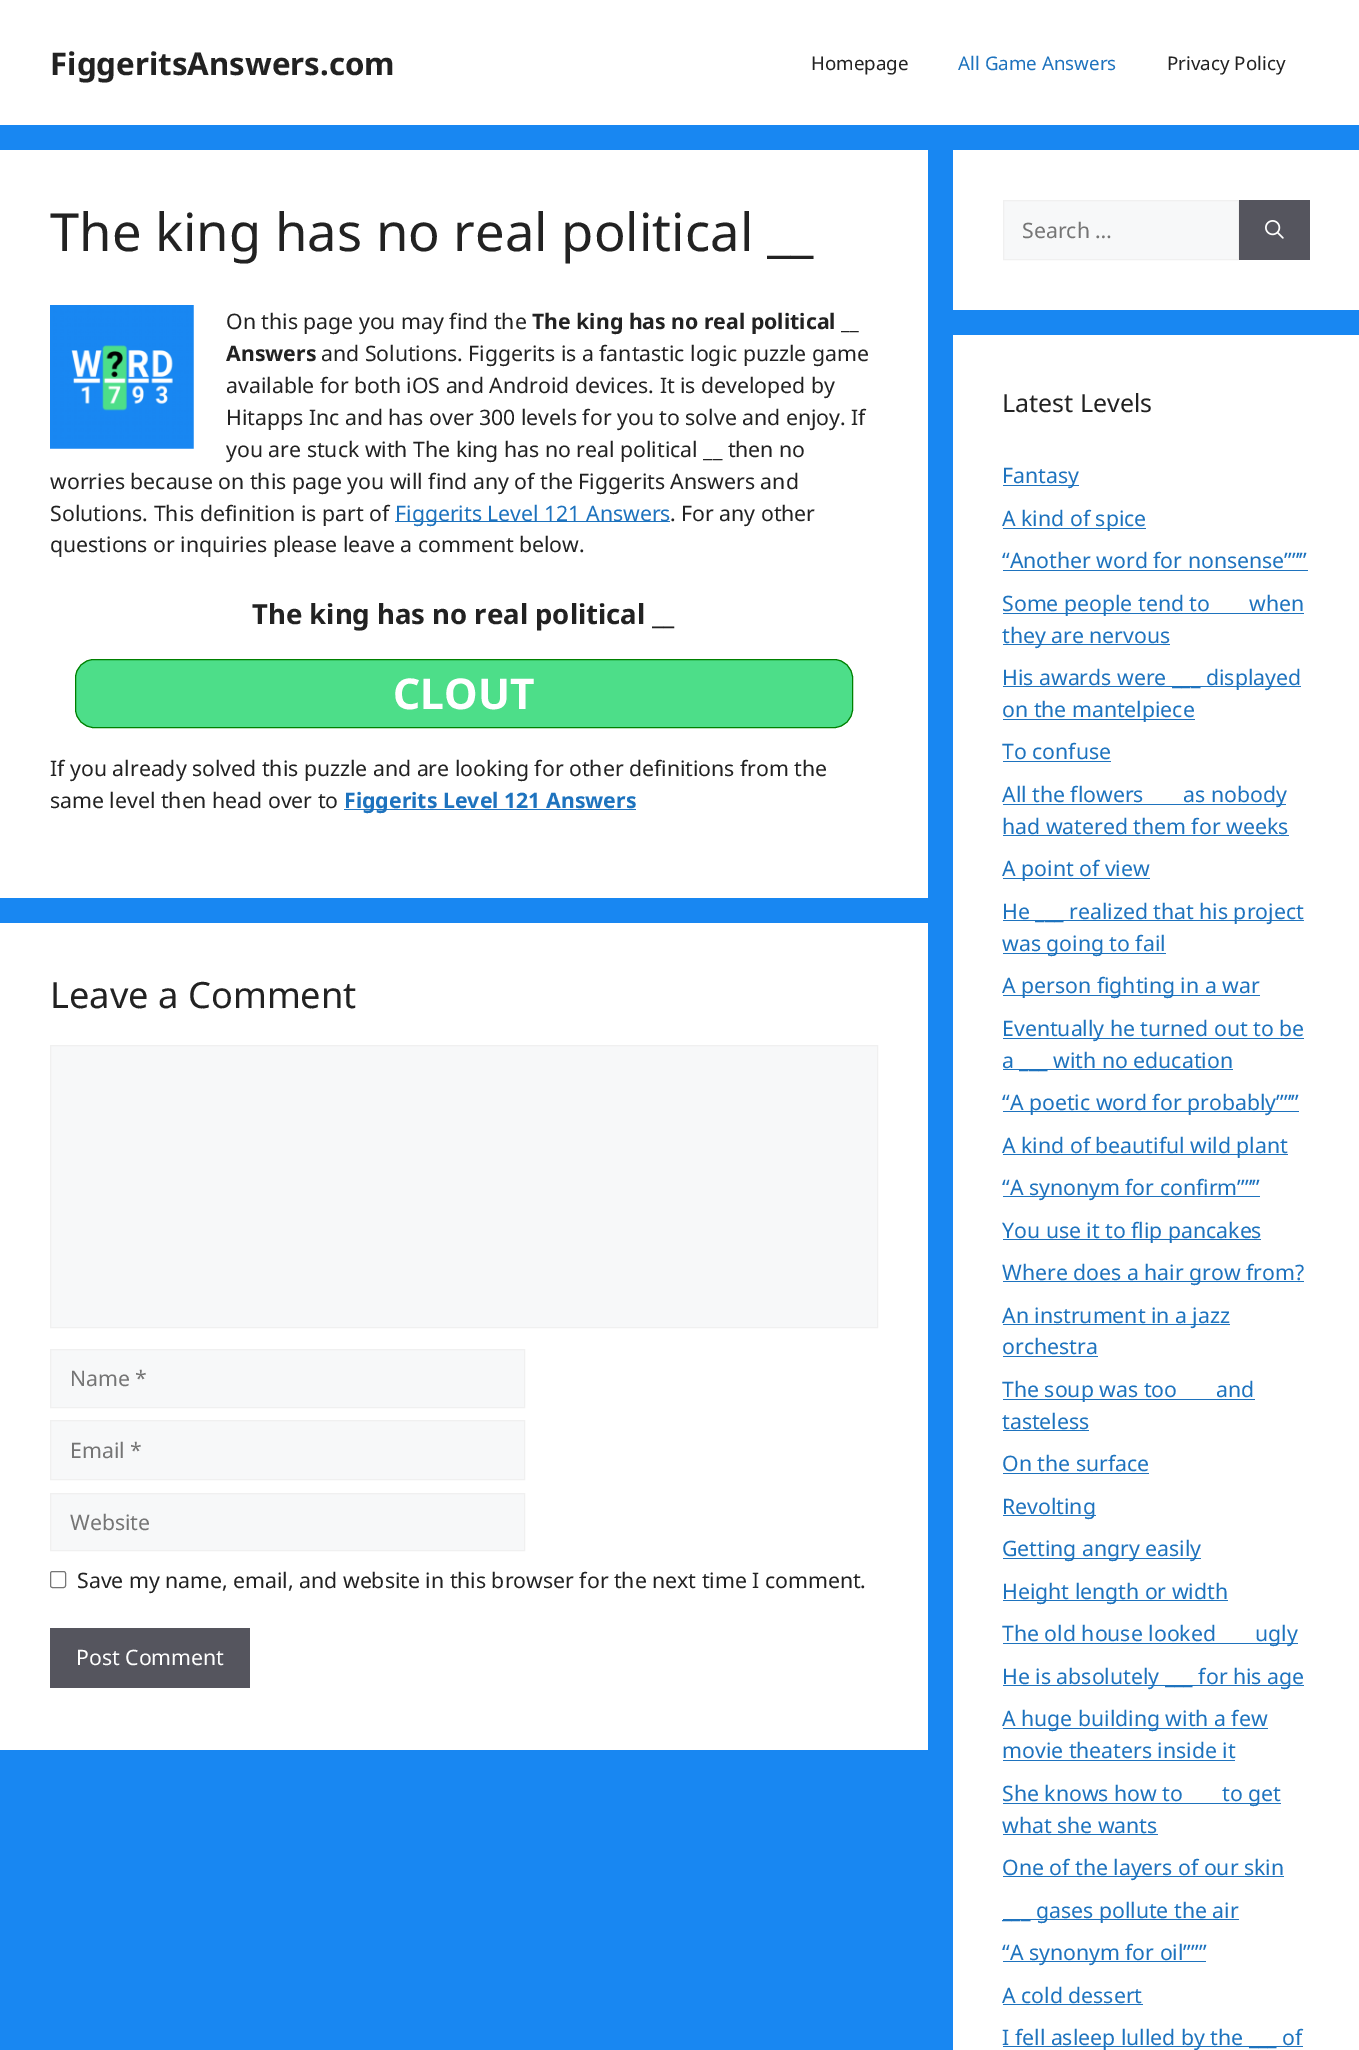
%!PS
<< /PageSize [1359 2050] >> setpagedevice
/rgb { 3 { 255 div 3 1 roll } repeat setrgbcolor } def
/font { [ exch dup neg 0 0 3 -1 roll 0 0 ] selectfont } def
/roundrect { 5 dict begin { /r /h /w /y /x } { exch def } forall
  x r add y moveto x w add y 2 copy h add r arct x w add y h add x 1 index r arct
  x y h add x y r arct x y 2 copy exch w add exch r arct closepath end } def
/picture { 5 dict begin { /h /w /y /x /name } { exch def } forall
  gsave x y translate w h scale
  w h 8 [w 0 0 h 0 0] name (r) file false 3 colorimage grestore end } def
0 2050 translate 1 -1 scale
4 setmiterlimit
24 135 242 rgb
0 0 1359 2050 rectfill
255 255 255 rgb
0 0 1359 125 rectfill
0 150 928 748 rectfill
(img/1.rgb) 50 305 144 144 picture
30 115 190 rgb
395 521 275 1 rectfill
77 222 137 rgb
75.5 659.5 777 68 18.5 roundrect gsave fill grestore
0 128 0 rgb
stroke
30 115 190 rgb
344 809 292 1 rectfill
255 255 255 rgb
0 923 928 827 rectfill
247 248 249 rgb
50.5 1045.5 moveto 877.5 1045.5 lineto 877.5 1327.5 lineto 50.5 1327.5 lineto closepath gsave fill grestore
240 240 240 rgb
stroke
247 248 249 rgb
50.5 1349.5 moveto 524.5 1349.5 lineto 524.5 1407.5 lineto 50.5 1407.5 lineto closepath gsave fill grestore
240 240 240 rgb
stroke
247 248 249 rgb
50.5 1420.5 moveto 524.5 1420.5 lineto 524.5 1479.5 lineto 50.5 1479.5 lineto closepath gsave fill grestore
240 240 240 rgb
stroke
247 248 249 rgb
50.5 1493.5 moveto 524.5 1493.5 lineto 524.5 1550.5 lineto 50.5 1550.5 lineto closepath gsave fill grestore
240 240 240 rgb
stroke
118 118 118 rgb
50.5 1571.5 15 16 2 roundrect stroke
85 85 94 rgb
50 1628 200 60 rectfill
255 255 255 rgb
953 150 406 160 rectfill
247 248 249 rgb
1003.5 200.5 moveto 1238.5 200.5 lineto 1238.5 259.5 lineto 1003.5 259.5 lineto closepath gsave fill grestore
240 240 240 rgb
stroke
85 85 94 rgb
1239 200 71 60 rectfill
(img/2.rgb) 1265 220 19 19 picture
[
  [953 335 406 1715 255 255 255]
  [1003 485 76 1 30 115 190]
  [1003 528 143 1 30 115 190]
  [1003 570 305 1 30 115 190]
  [1003 613 301 1 30 115 190]
  [1003 644 167 1 30 115 190]
  [1003 686 298 1 30 115 190]
  [1003 719 192 1 30 115 190]
  [1003 761 108 1 30 115 190]
  [1003 804 283 1 30 115 190]
  [1003 835 286 1 30 115 190]
  [1003 878 147 1 30 115 190]
  [1003 920 301 1 30 115 190]
  [1003 953 163 1 30 115 190]
  [1003 995 257 1 30 115 190]
  [1003 1038 301 1 30 115 190]
  [1003 1069 230 1 30 115 190]
  [1003 1111 296 1 30 115 190]
  [1003 1154 285 1 30 115 190]
  [1003 1196 257 1 30 115 190]
  [1003 1239 258 1 30 115 190]
  [1003 1281 301 1 30 115 190]
  [1003 1324 227 1 30 115 190]
  [1003 1356 95 1 30 115 190]
  [1003 1399 252 1 30 115 190]
  [1003 1430 86 1 30 115 190]
  [1003 1473 146 1 30 115 190]
  [1003 1515 93 1 30 115 190]
  [1003 1558 198 1 30 115 190]
  [1003 1600 225 1 30 115 190]
  [1003 1643 295 1 30 115 190]
  [1003 1685 301 1 30 115 190]
  [1003 1728 265 1 30 115 190]
  [1003 1760 232 1 30 115 190]
  [1003 1803 278 1 30 115 190]
  [1003 1834 155 1 30 115 190]
  [1003 1876 281 1 30 115 190]
  [1003 1919 236 1 30 115 190]
  [1003 1961 203 1 30 115 190]
  [1003 2004 140 1 30 115 190]
  [1003 2046 300 1 30 115 190]
] { aload pop rgb rectfill } forall
/NotoSans-Bold 31.25 font
34 34 34 rgb
50 75 moveto (FiggeritsAnswers.com) show
/NotoSans-Regular 18.75 font
811 70 moveto (Homepage) show
30 115 190 rgb
958 70 moveto (All Game Answers) show
34 34 34 rgb
1167 70 moveto (Privacy Policy) show
/NotoSans-Regular 52.5 font
50 251 moveto (The king has no real political __) show
/NotoSans-Regular 21.25 font
226 329 moveto (On this page you may find the) show
/NotoSans-Bold 21.25 font
532 329 moveto (The king has no real political __) show
226 361 moveto (Answers) show
/NotoSans-Regular 21.25 font
[
  [(and Solutions. Figgerits is a fantastic logic puzzle game) 321 361]
  [(available for both iOS and Android devices. It is developed by) 226 393]
  [(Hitapps Inc and has over 300 levels for you to solve and enjoy. If) 226 425]
  [(you are stuck with The king has no real political __ then no) 226 457]
  [(worries because on this page you will find any of the Figgerits Answers and) 50 489]
  [(Solutions. This definition is part of) 50 521]
] { aload pop moveto show } forall
30 115 190 rgb
395 521 moveto (Figgerits Level 121 Answers) show
34 34 34 rgb
670 521 moveto (. For any other) show
50 552 moveto (questions or inquiries please leave a comment below.) show
/NotoSans-Bold 27.5 font
252 624 moveto (The king has no real political __) show
/NotoSans-Bold 42.5 font
255 255 255 rgb
393 709 moveto (CLOUT) show
/NotoSans-Regular 21.25 font
34 34 34 rgb
50 776 moveto (If you already solved this puzzle and are looking for other definitions from the) show
50 808 moveto (same level then head over to) show
/NotoSans-Bold 21.25 font
30 115 190 rgb
344 808 moveto (Figgerits Level 121 Answers) show
/NotoSans-Regular 36.25 font
34 34 34 rgb
50 1008 moveto (Leave a Comment) show
/NotoSans-Regular 21.25 font
117 117 117 rgb
[
  [(Name *) 70 1386]
  [(Email *) 70 1458]
  [(Website) 70 1530]
] { aload pop moveto show } forall
34 34 34 rgb
77 1588 moveto (Save my name, email, and website in this browser for the next time I comment.) show
255 255 255 rgb
76 1665 moveto (Post Comment) show
117 117 117 rgb
1022 238 moveto (Search …) show
/NotoSans-Regular 25 font
34 34 34 rgb
1002 412 moveto (Latest Levels) show
/NotoSans-Regular 21.25 font
30 115 190 rgb
[
  [(Fantasy) 1002 483]
  [(A kind of spice) 1002 526]
  [(“Another word for nonsense”””) 1002 568]
  [(Some people tend to) 1002 611]
  [(when) 1249 611]
  [(they are nervous) 1002 643]
  [(His awards were ___ displayed) 1002 685]
  [(on the mantelpiece) 1002 717]
  [(To confuse) 1002 759]
  [(All the flowers) 1002 802]
  [(as nobody) 1183 802]
  [(had watered them for weeks) 1002 834]
  [(A point of view) 1002 876]
  [(He ___ realized that his project) 1002 919]
  [(was going to fail) 1002 951]
  [(A person fighting in a war) 1002 993]
  [(Eventually he turned out to be) 1002 1036]
  [(a ___ with no education) 1002 1068]
  [(“A poetic word for probably”””) 1002 1110]
  [(A kind of beautiful wild plant) 1002 1153]
  [(“A synonym for confirm”””) 1002 1195]
  [(You use it to flip pancakes) 1002 1238]
  [(Where does a hair grow from?) 1002 1280]
  [(An instrument in a jazz) 1002 1323]
  [(orchestra) 1002 1354]
  [(The soup was too) 1002 1397]
  [(and) 1216 1397]
  [(tasteless) 1002 1429]
  [(On the surface) 1002 1471]
  [(Revolting) 1002 1514]
  [(Getting angry easily) 1002 1556]
  [(Height length or width) 1002 1599]
  [(The old house looked) 1002 1641]
  [(ugly) 1255 1641]
  [(He is absolutely ___ for his age) 1002 1684]
  [(A huge building with a few) 1002 1726]
  [(movie theaters inside it) 1002 1758]
  [(She knows how to) 1002 1801]
  [(to get) 1222 1801]
  [(what she wants) 1002 1833]
  [(One of the layers of our skin) 1002 1875]
  [(___ gases pollute the air) 1002 1918]
  [(“A synonym for oil”””) 1002 1960]
  [(A cold dessert) 1002 2003]
  [(I fell asleep lulled by the ___ of) 1002 2045]
] { aload pop moveto show } forall
showpage
